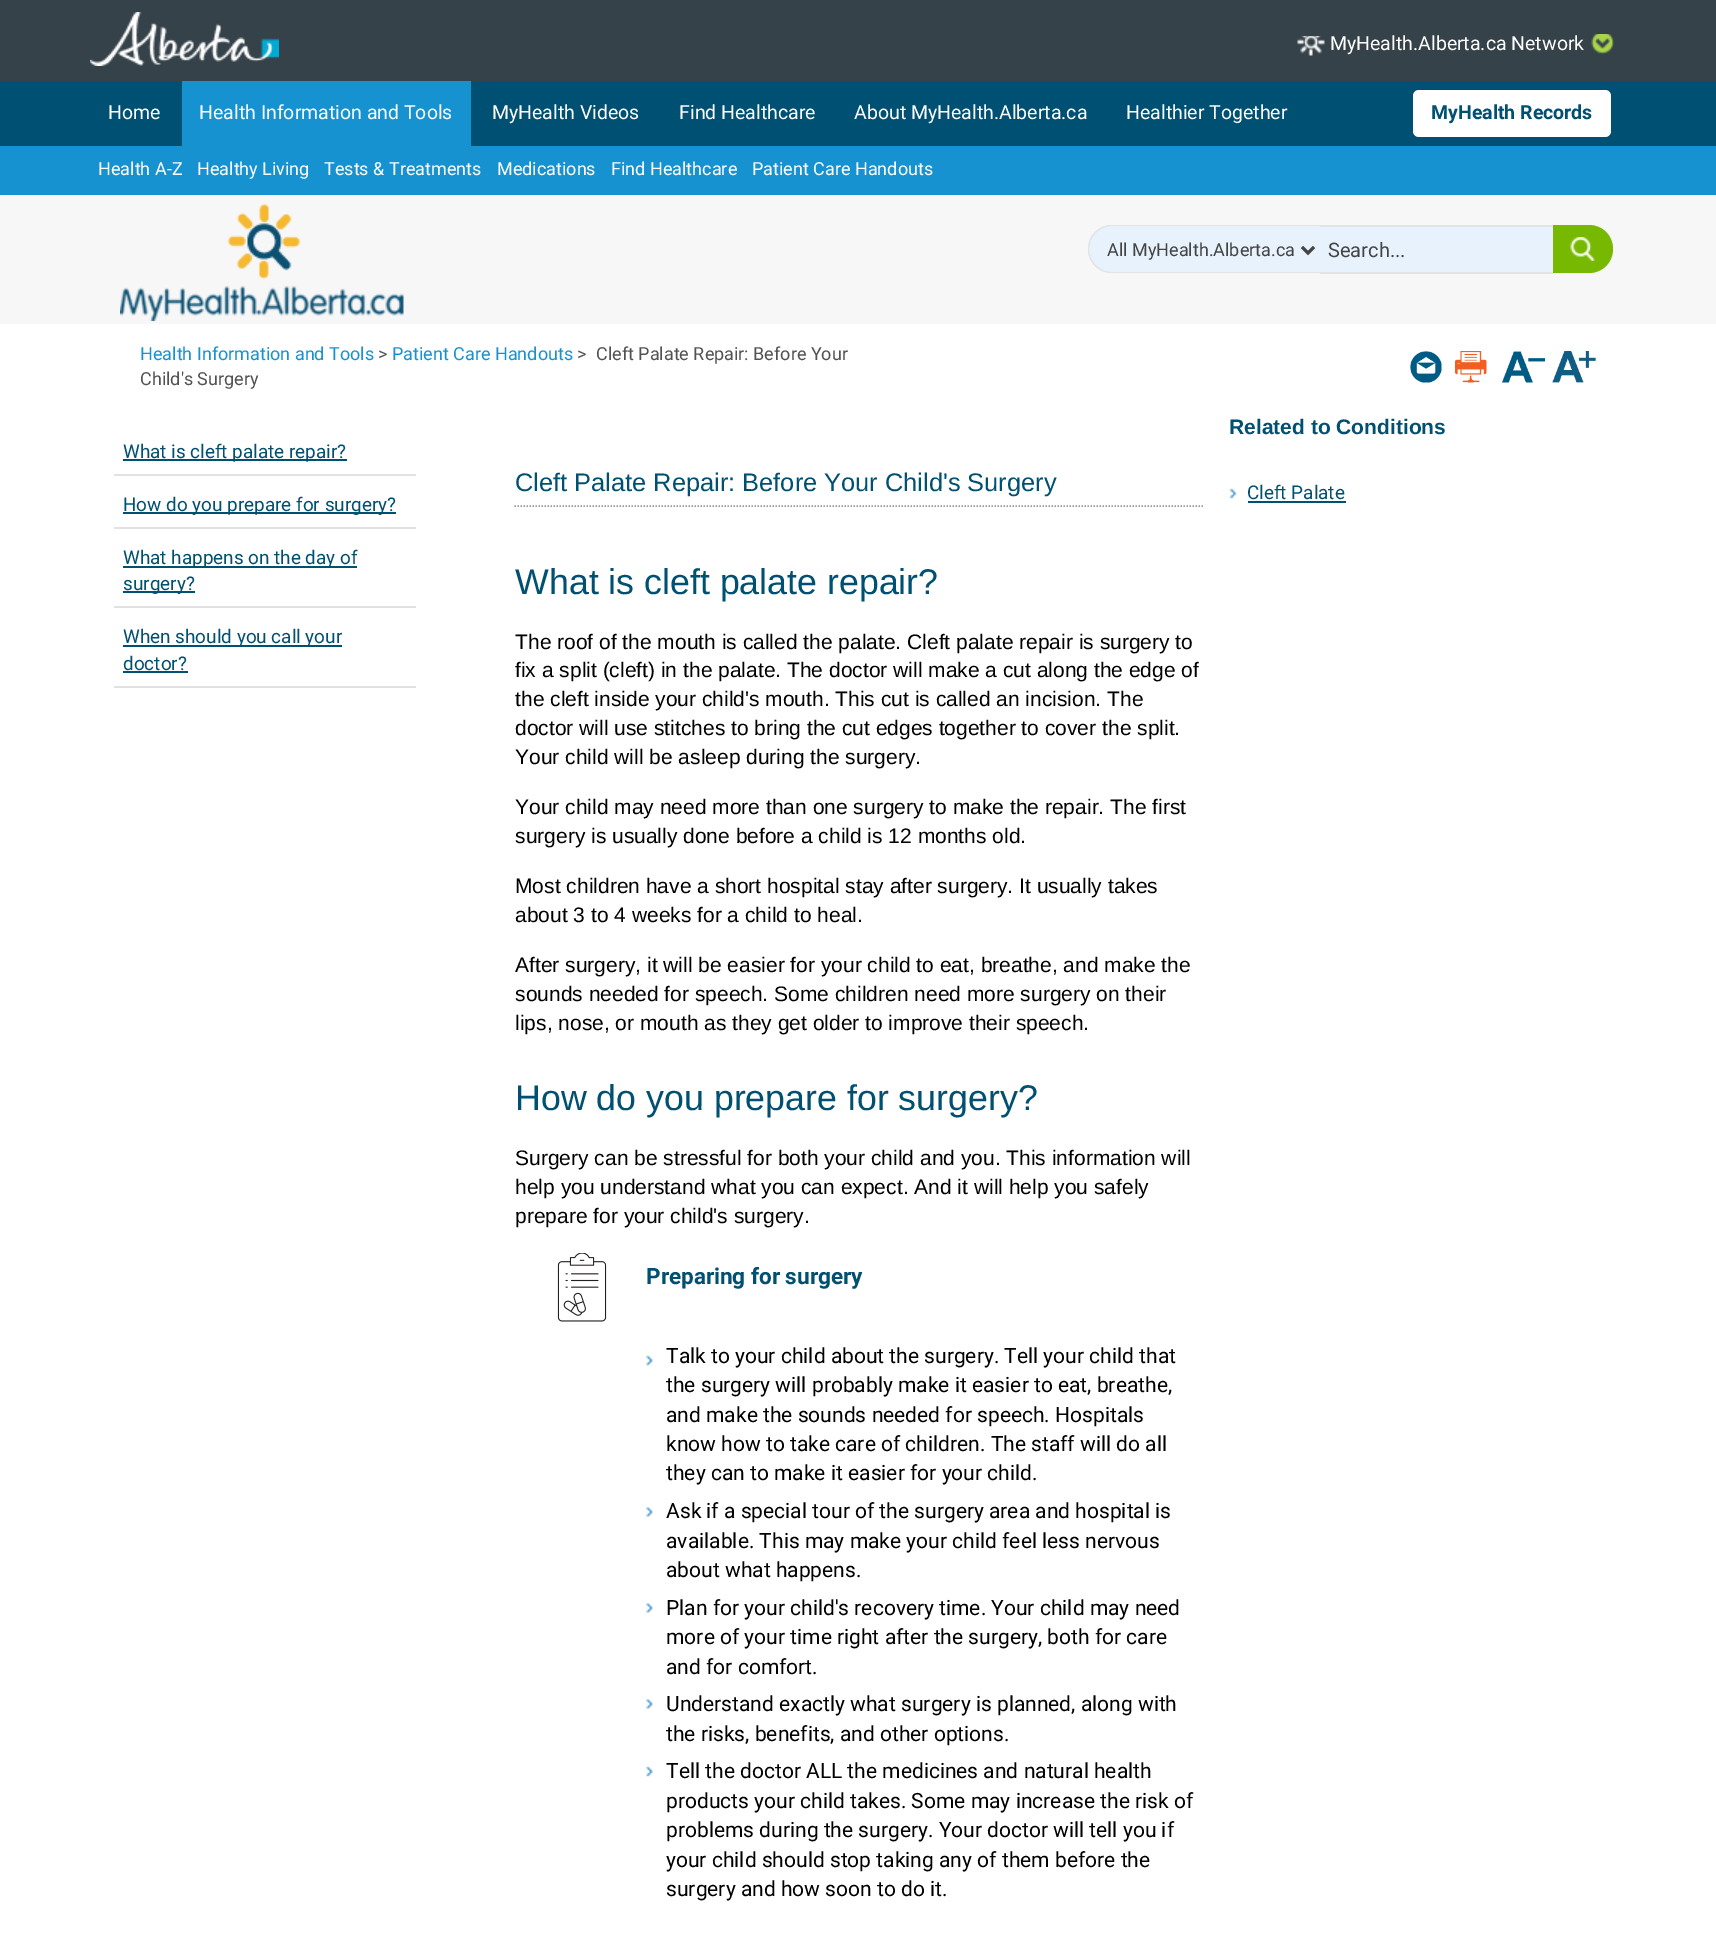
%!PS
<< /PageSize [1716 1940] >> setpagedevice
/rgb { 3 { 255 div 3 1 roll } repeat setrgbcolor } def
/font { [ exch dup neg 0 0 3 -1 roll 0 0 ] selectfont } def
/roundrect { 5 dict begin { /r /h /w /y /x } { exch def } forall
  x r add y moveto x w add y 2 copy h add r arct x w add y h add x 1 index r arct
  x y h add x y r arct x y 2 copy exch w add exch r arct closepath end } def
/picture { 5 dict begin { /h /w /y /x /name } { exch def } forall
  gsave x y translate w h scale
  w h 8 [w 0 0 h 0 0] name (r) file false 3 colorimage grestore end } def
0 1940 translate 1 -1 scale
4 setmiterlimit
247 247 247 rgb
0 0 1716 1940 rectfill
0 80 115 rgb
0 81 1716 65 rectfill
54 66 74 rgb
0 0 1716 81 rectfill
(img/1.rgb) 90 12 189 54 picture
(img/2.rgb) 1297 36 28 20 picture
(img/3.rgb) 1591 34 23 20 picture
22 146 208 rgb
182 81 289 65 rectfill
255 255 255 rgb
1413 90 198 47 6 roundrect fill
22 146 208 rgb
0 146 1716 49 rectfill
(img/4.rgb) 120 204 284 117 picture
231 242 252 rgb
1112 225 moveto 1320 225 lineto 1320 273 lineto 1112 273 lineto 1098.5 273 1088 262.5 1088 249 curveto 1088 235.5 1098.5 225 1112 225 curveto closepath fill
226 228 227 rgb
1112 225 moveto 1320 225 lineto 1320 273 lineto 1112 273 lineto 1098 273 1088 262 1088 249 curveto 1088 236 1098 225 1112 225 curveto closepath 1112 226 moveto 1320 226 lineto 1320 272 lineto 1112 272 lineto 1099 272 1089 261 1089 249 curveto 1089 237 1099 226 1112 226 curveto closepath eofill
68 68 68 rgb
3 setlinewidth
1302 247 moveto 1308 253 lineto 1314 247 lineto stroke
[
  [1320 227 233 45 231 242 252]
  [1320 225 233 2 226 228 227]
  [1320 272 233 2 226 228 227]
] { aload pop rgb rectfill } forall
119 184 0 rgb
1553 225 moveto 1589 225 lineto 1602.5 225 1613 235.5 1613 249 curveto 1613 262.5 1602.5 273 1589 273 curveto 1553 273 lineto closepath fill
(img/5.rgb) 1570 237 25 24 picture
255 255 255 rgb
0 324 1716 1616 rectfill
(img/6.rgb) 1410 351 32 32 picture
(img/7.rgb) 1455 351 32 32 picture
(img/8.rgb) 1501 351 44 32 picture
(img/9.rgb) 1552 351 44 32 picture
[
  [114 474 302 2 226 226 226]
  [123 459 224 2 0 80 114]
  [114 527 302 2 226 226 226]
  [123 512 273 2 0 80 114]
  [114 606 302 2 226 226 226]
  [123 566 234 2 0 80 114]
  [123 591 72 2 0 80 114]
  [114 686 302 2 226 226 226]
  [123 645 219 2 0 80 114]
  [123 671 65 2 0 80 114]
] { aload pop rgb rectfill } forall
(img/10.rgb) 1229 488 8 11 picture
1248 501 98 2 rectfill
153 153 153 rgb
1.5 setlinewidth
[1.5 1.5] 0 setdash
514.5 506 moveto 1204.5 506 lineto stroke
(img/11.rgb) 557 1253 50 69 picture
(img/12.rgb) 646 1355 7 11 picture
(img/13.rgb) 646 1507 7 10 picture
(img/13.rgb) 646 1603 7 10 picture
(img/13.rgb) 646 1699 7 10 picture
(img/12.rgb) 646 1766 7 11 picture
/Roboto-Regular 19.5 font
255 255 255 rgb
[
  [(MyHealth.Alberta.ca Network) 1330 50]
  [(Home) 108 119]
  [(Health Information and Tools) 199 119]
  [(MyHealth Videos) 492 119]
  [(Find Healthcare) 679 119]
  [(About MyHealth.Alberta.ca) 854 119]
  [(Healthier Together) 1126 119]
] { aload pop moveto show } forall
/Roboto-Bold 19.5 font
0 80 114 rgb
1431 119 moveto (MyHealth Records) show
/Roboto-Regular 18 font
255 255 255 rgb
[
  [(Health A-Z) 98 175]
  [(Healthy Living) 197 175]
  [(Tests & Treatments) 324 175]
  [(Medications) 497 175]
  [(Find Healthcare) 611 175]
  [(Patient Care Handouts) 752 175]
] { aload pop moveto show } forall
68 68 68 rgb
1107 256 moveto (All MyHealth.Alberta.ca) show
/Roboto-Regular 20 font
1328 257 moveto (Search...) show
/Roboto-Regular 18 font
22 146 209 rgb
140 360 moveto (Health Information and Tools) show
82 82 82 rgb
378 360 moveto (>) show
22 146 209 rgb
392 360 moveto (Patient Care Handouts) show
82 82 82 rgb
[
  [(>) 577 360]
  [(Cleft Palate Repair: Before Your) 596 360]
  [(Child's Surgery) 140 385]
] { aload pop moveto show } forall
/Roboto-Regular 18.9 font
0 80 114 rgb
[
  [(What is cleft palate repair?) 123 458]
  [(How do you prepare for surgery?) 123 511]
  [(What happens on the day of) 123 564]
  [(surgery?) 123 590]
  [(When should you call your) 123 643]
  [(doctor?) 123 670]
] { aload pop moveto show } forall
/LiberationSans-Bold 21 font
1229 434 moveto (Related to Conditions) show
/Roboto-Regular 18.9 font
1247 499 moveto (Cleft Palate) show
/LiberationSans-Regular 25.4 font
515 491 moveto (Cleft Palate Repair: Before Your Child's Surgery) show
/LiberationSans-Regular 35.75 font
515 594 moveto (What is cleft palate repair?) show
/LiberationSans-Regular 21 font
0 0 0 rgb
[
  [(The roof of the mouth is called the palate. Cleft palate repair is surgery to) 515 649]
  [(fix a split \(cleft\) in the palate. The doctor will make a cut along the edge of) 515 677]
  [(the cleft inside your child's mouth. This cut is called an incision. The) 515 706]
  [(doctor will use stitches to bring the cut edges together to cover the split.) 515 735]
  [(Your child will be asleep during the surgery.) 515 764]
  [(Your child may need more than one surgery to make the repair. The first) 515 814]
  [(surgery is usually done before a child is 12 months old.) 515 843]
  [(Most children have a short hospital stay after surgery. It usually takes) 515 893]
  [(about 3 to 4 weeks for a child to heal.) 515 922]
  [(After surgery, it will be easier for your child to eat, breathe, and make the) 515 972]
  [(sounds needed for speech. Some children need more surgery on their) 515 1001]
  [(lips, nose, or mouth as they get older to improve their speech.) 515 1030]
] { aload pop moveto show } forall
/LiberationSans-Regular 35.75 font
0 80 114 rgb
515 1110 moveto (How do you prepare for surgery?) show
/LiberationSans-Regular 21 font
0 0 0 rgb
[
  [(Surgery can be stressful for both your child and you. This information will) 515 1165]
  [(help you understand what you can expect. And it will help you safely) 515 1194]
  [(prepare for your child's surgery.) 515 1223]
] { aload pop moveto show } forall
/Roboto-Bold 22.5 font
0 80 114 rgb
646 1284 moveto (Preparing for surgery) show
/Roboto-Regular 21 font
0 0 0 rgb
[
  [(Talk to your child about the surgery. Tell your child that) 666 1363]
  [(the surgery will probably make it easier to eat, breathe,) 666 1392]
  [(and make the sounds needed for speech. Hospitals) 666 1422]
  [(know how to take care of children. The staff will do all) 666 1451]
  [(they can to make it easier for your child.) 666 1480]
  [(Ask if a special tour of the surgery area and hospital is) 666 1518]
  [(available. This may make your child feel less nervous) 666 1548]
  [(about what happens.) 666 1577]
  [(Plan for your child's recovery time. Your child may need) 666 1615]
  [(more of your time right after the surgery, both for care) 666 1644]
  [(and for comfort.) 666 1674]
  [(Understand exactly what surgery is planned, along with) 666 1711]
  [(the risks, benefits, and other options.) 666 1741]
  [(Tell the doctor ALL the medicines and natural health) 666 1778]
  [(products your child takes. Some may increase the risk of) 666 1808]
  [(problems during the surgery. Your doctor will tell you if) 666 1837]
  [(your child should stop taking any of them before the) 666 1867]
  [(surgery and how soon to do it.) 666 1896]
] { aload pop moveto show } forall
showpage
